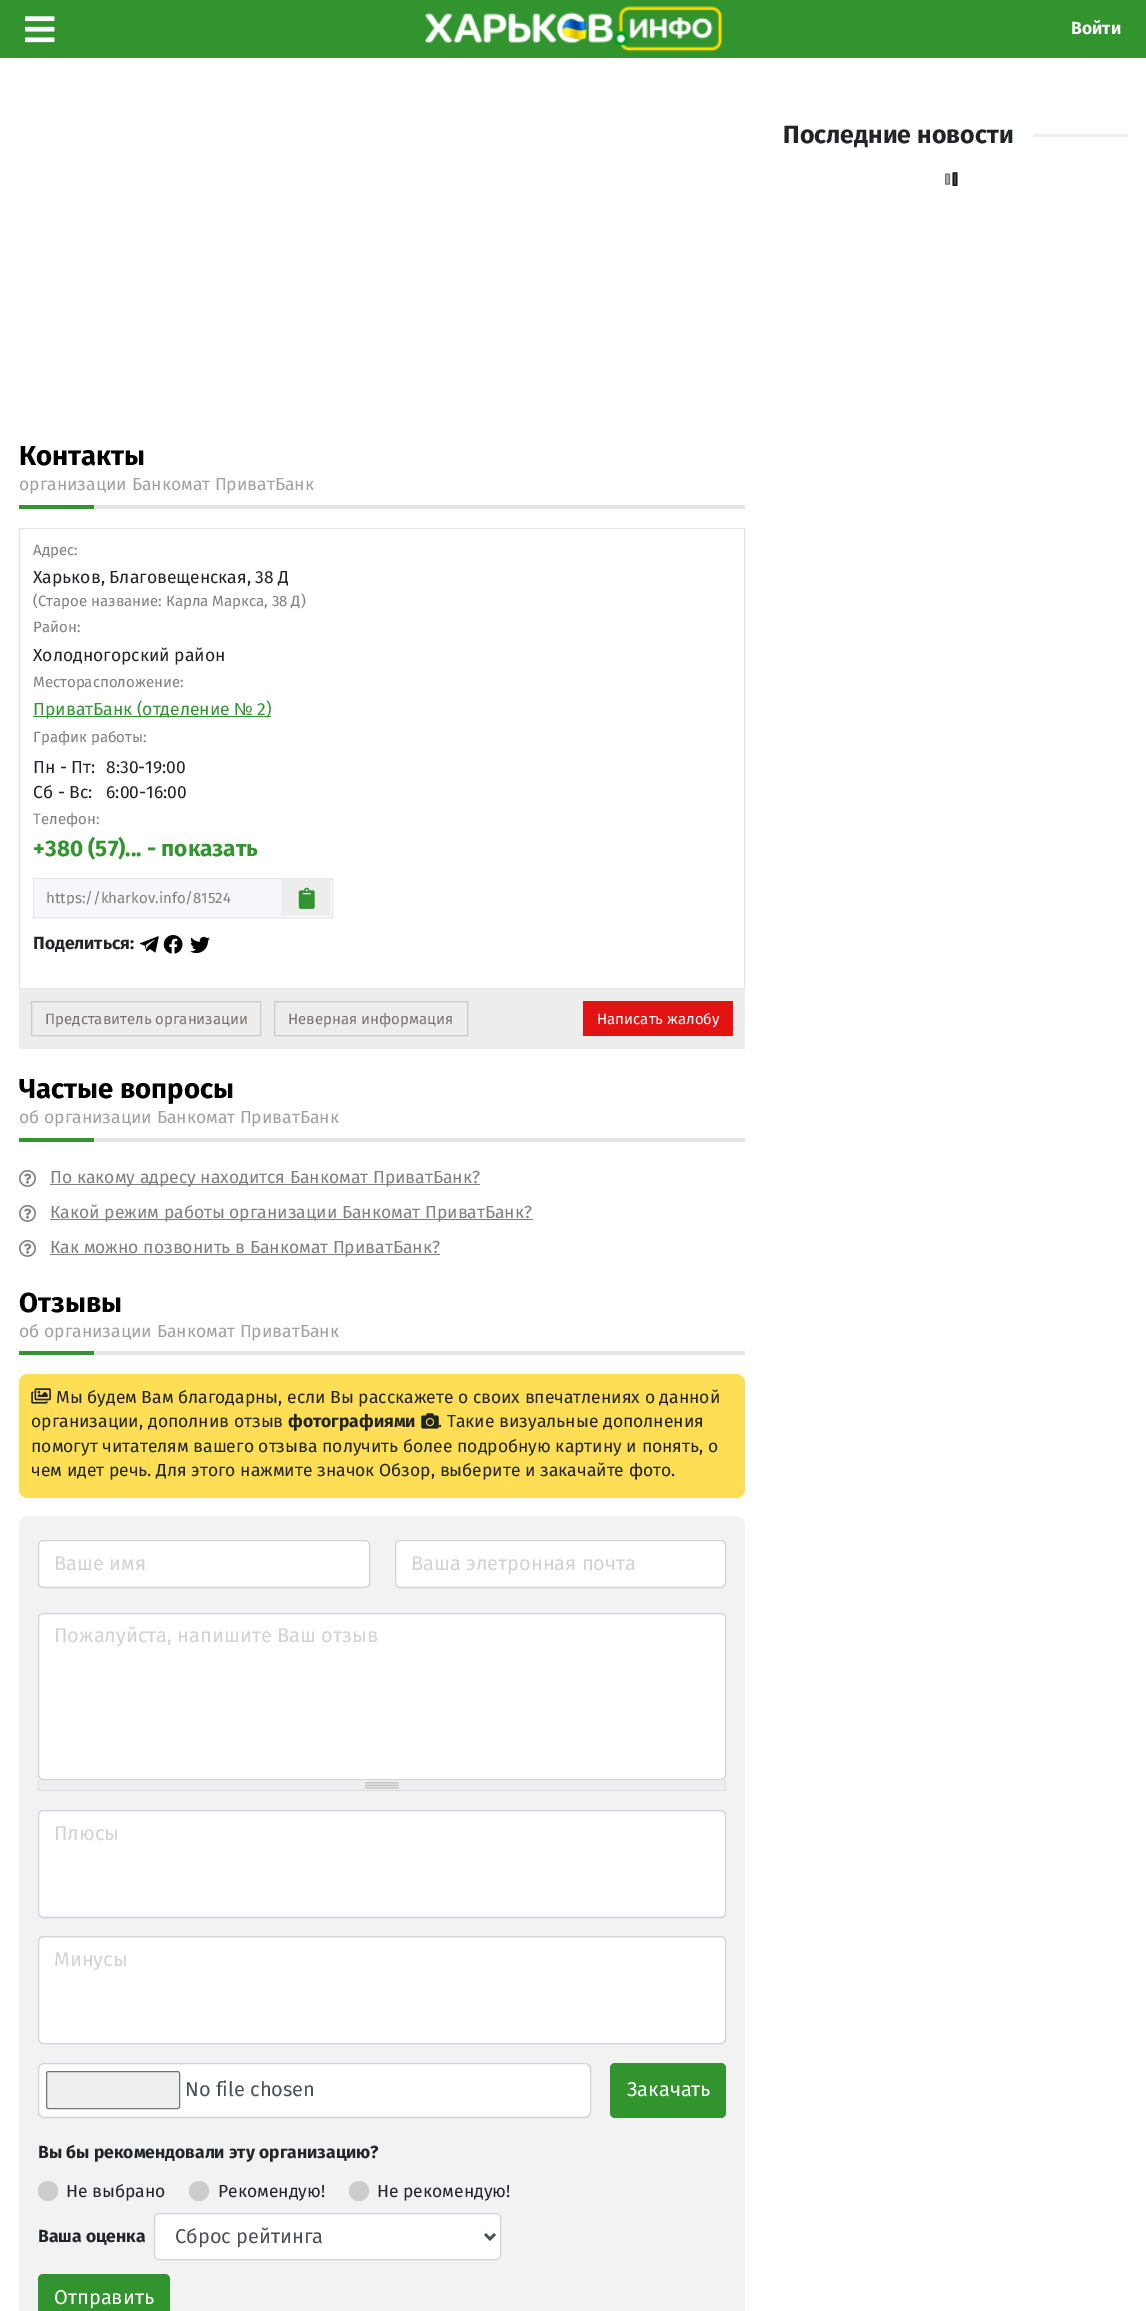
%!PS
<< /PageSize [1146 2311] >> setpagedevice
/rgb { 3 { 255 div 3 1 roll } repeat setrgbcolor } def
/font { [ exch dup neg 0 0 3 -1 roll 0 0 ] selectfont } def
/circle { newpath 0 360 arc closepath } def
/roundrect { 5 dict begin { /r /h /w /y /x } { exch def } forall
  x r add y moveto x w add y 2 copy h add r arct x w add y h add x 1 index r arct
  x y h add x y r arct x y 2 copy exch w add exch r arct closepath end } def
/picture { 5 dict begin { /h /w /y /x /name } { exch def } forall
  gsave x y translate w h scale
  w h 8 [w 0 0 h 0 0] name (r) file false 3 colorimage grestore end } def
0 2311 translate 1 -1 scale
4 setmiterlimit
255 255 255 rgb
0 0 1146 2311 rectfill
49 148 46 rgb
0 0 1146 58 rectfill
(img/1.rgb) 424 6 299 46 picture
(img/2.rgb) 25 16 30 27 picture
238 238 238 rgb
1033 134 95 3 rectfill
(img/3.rgb) 944 172 14 14 picture
229 229 229 rgb
94 505 651 4 rectfill
49 148 46 rgb
19 505 75 4 rectfill
229 229 229 rgb
19.5 528.5 725 460 rectstroke
49 148 46 rgb
33 716 238 1 rectfill
229 229 229 rgb
33.5 878.5 299 39 rectstroke
245 247 250 rgb
34 879 247 37 rectfill
237 237 237 rgb
281 879 50 37 rectfill
(img/4.rgb) 298 887 17 22 picture
(img/5.rgb) 140 936 19 17 picture
(img/6.rgb) 163 935 20 19 picture
(img/7.rgb) 190 936 20 18 picture
19 989 726 60 rectfill
202 202 202 rgb
31.5 1001.5 229 34 rectstroke
274.5 1001.5 193 34 rectstroke
[
  [583 1001 150 35 228 19 19]
  [94 1138 651 4 229 229 229]
  [19 1138 75 4 49 148 46]
] { aload pop rgb rectfill } forall
(img/8.rgb) 19 1170 17 17 picture
128 128 128 rgb
50 1184 430 1 rectfill
(img/8.rgb) 19 1205 17 17 picture
50 1219 483 1 rectfill
(img/8.rgb) 19 1240 17 17 picture
[
  [50 1254 390 1 128 128 128]
  [94 1351 651 4 229 229 229]
  [19 1351 75 4 49 148 46]
] { aload pop rgb rectfill } forall
253 222 85 rgb
19 1374 726 124 9 roundrect fill
(img/9.rgb) 31 1388 20 16 picture
(img/10.rgb) 421 1413 18 16 picture
242 242 242 rgb
19 1516 726 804 9 roundrect fill
255 255 255 rgb
39 1541 330 45 4 roundrect fill
206 212 218 rgb
38.5 1540.5 331 47 4.5 roundrect stroke
255 255 255 rgb
396 1541 329 45 4 roundrect fill
206 212 218 rgb
395.5 1540.5 330 47 4.5 roundrect stroke
255 255 255 rgb
38.5 1613.5 687 166 4.5 roundrect gsave fill grestore
206 212 218 rgb
stroke
238 238 238 rgb
39 1780 686 10 rectfill
(img/11.rgb) 365 1782 34 7 picture
[
  [725 1780 1 11 221 221 221]
  [38 1790 688 1 221 221 221]
  [38 1780 1 11 221 221 221]
] { aload pop rgb rectfill } forall
255 255 255 rgb
39 1811 686 105 4 roundrect fill
206 212 218 rgb
38.5 1810.5 687 107 4.5 roundrect stroke
255 255 255 rgb
39 1938 686 105 4 roundrect fill
206 212 218 rgb
38.5 1936.5 687 107 4.5 roundrect stroke
255 255 255 rgb
39 2064 551 52 5 roundrect fill
206 212 218 rgb
38.5 2063.5 552 54 5.5 roundrect stroke
239 239 239 rgb
46.5 2071.5 133 37 2 roundrect gsave fill grestore
118 118 118 rgb
stroke
49 148 46 rgb
610 2063 116 55 5 roundrect fill
204 204 204 rgb
48 2191 10 circle fill
199 2191 10 circle fill
359 2191 10 circle fill
255 255 255 rgb
154.5 2213.5 346 46 4.5 roundrect gsave fill grestore
206 212 218 rgb
stroke
73 80 87 rgb
2.5 setlinewidth
485 2234 moveto 490 2239 lineto 495 2234 lineto stroke
49 148 46 rgb
38 2274 132 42 5 roundrect fill
/FiraSans-Bold 17.5 font
255 255 255 rgb
1071 34 moveto (Войти) show
/FiraSans-Bold 25 font
33 37 41 rgb
783 143 moveto (Последние новости) show
/FiraSans-Bold 27.5 font
0 0 0 rgb
19 465 moveto (Контакты) show
/FiraSans-Regular 17.5 font
161 161 161 rgb
19 490 moveto (организации Банкомат ПриватБанк) show
/FiraSans-Regular 15 font
128 128 128 rgb
33 555 moveto (Адрес:) show
/FiraSans-Regular 17.5 font
33 37 41 rgb
33 583 moveto (Харьков, Благовещенская, 38 Д) show
/FiraSans-Regular 15 font
128 128 128 rgb
33 606 moveto (\(Старое название: Карла Маркса, 38 Д\)) show
33 632 moveto (Район:) show
/FiraSans-Regular 17.5 font
33 37 41 rgb
33 661 moveto (Холодногорский район) show
/FiraSans-Regular 15 font
128 128 128 rgb
33 687 moveto (Месторасположение:) show
/FiraSans-Regular 17.5 font
49 148 46 rgb
33 715 moveto (ПриватБанк \(отделение) show
/LiberationSans-Regular 17.5 font
234 715 moveto (№) show
/FiraSans-Regular 17.5 font
257 715 moveto (2\)) show
/FiraSans-Regular 15 font
128 128 128 rgb
33 742 moveto (График работы:) show
/FiraSans-Regular 17.5 font
33 37 41 rgb
[
  [(Пн - Пт:) 33 773]
  [(8:30-19:00) 106 773]
  [(Сб - Вс:) 33 798]
  [(6:00-16:00) 106 798]
] { aload pop moveto show } forall
/FiraSans-Regular 15 font
128 128 128 rgb
33 824 moveto (Телефон:) show
/FiraSans-Bold 22.5 font
49 148 46 rgb
33 856 moveto (+380 \(57\)... - показать) show
gsave
46 890 223 15 rectclip
/FiraSans-Regular 15 font
128 128 128 rgb
46 903 moveto (https://kharkov.info/81524) show
grestore
/FiraSans-Bold 17.5 font
33 37 41 rgb
33 949 moveto (Поделиться:) show
/FiraSans-Regular 15 font
119 115 112 rgb
45 1024 moveto (Представитель организации) show
288 1024 moveto (Неверная информация) show
255 255 255 rgb
597 1024 moveto (Написать жалобу) show
/FiraSans-Bold 27.5 font
0 0 0 rgb
19 1098 moveto (Частые вопросы) show
/FiraSans-Regular 17.5 font
161 161 161 rgb
19 1123 moveto (об организации Банкомат ПриватБанк) show
128 128 128 rgb
[
  [(По какому адресу находится Банкомат ПриватБанк?) 50 1183]
  [(Какой режим работы организации Банкомат ПриватБанк?) 50 1218]
  [(Как можно позвонить в Банкомат ПриватБанк?) 50 1253]
] { aload pop moveto show } forall
/FiraSans-Bold 27.5 font
0 0 0 rgb
19 1312 moveto (Отзывы) show
/FiraSans-Regular 17.5 font
161 161 161 rgb
19 1337 moveto (об организации Банкомат ПриватБанк) show
33 37 41 rgb
56 1403 moveto (Мы будем Вам благодарны, если Вы расскажете о своих впечатлениях о данной) show
31 1427 moveto (организации, дополнив отзыв) show
/FiraSans-Bold 17.5 font
288 1427 moveto (фотографиями) show
/FiraSans-Regular 17.5 font
[
  [(. Такие визуальные дополнения) 438 1427]
  [(помогут читателям вашего отзыва получить более подробную картину и понять, о) 31 1452]
  [(чем идет речь. Для этого нажмите значок Обзор, выберите и закачайте фото.) 31 1476]
] { aload pop moveto show } forall
/FiraSans-Regular 20 font
211 211 211 rgb
[
  [(Ваше имя) 54 1570]
  [(Ваша элетронная почта) 411 1570]
  [(Пожалуйста, напишите Ваш отзыв) 54 1642]
  [(Плюсы) 54 1840]
  [(Минусы) 54 1966]
] { aload pop moveto show } forall
73 80 87 rgb
185 2096 moveto (No file chosen) show
255 255 255 rgb
627 2096 moveto (Закачать) show
/FiraSans-Bold 17.5 font
33 37 41 rgb
38 2158 moveto (Вы бы рекомендовали эту организацию?) show
/FiraSans-Regular 17.5 font
[
  [(Не выбрано) 66 2197]
  [(Рекомендую!) 218 2197]
  [(Не рекомендую!) 377 2197]
] { aload pop moveto show } forall
/FiraSans-Bold 17.5 font
38 2242 moveto (Ваша оценка) show
/FiraSans-Regular 20 font
73 80 87 rgb
175 2243 moveto (Сброс рейтинга) show
255 255 255 rgb
54 2304 moveto (Отправить) show
showpage
